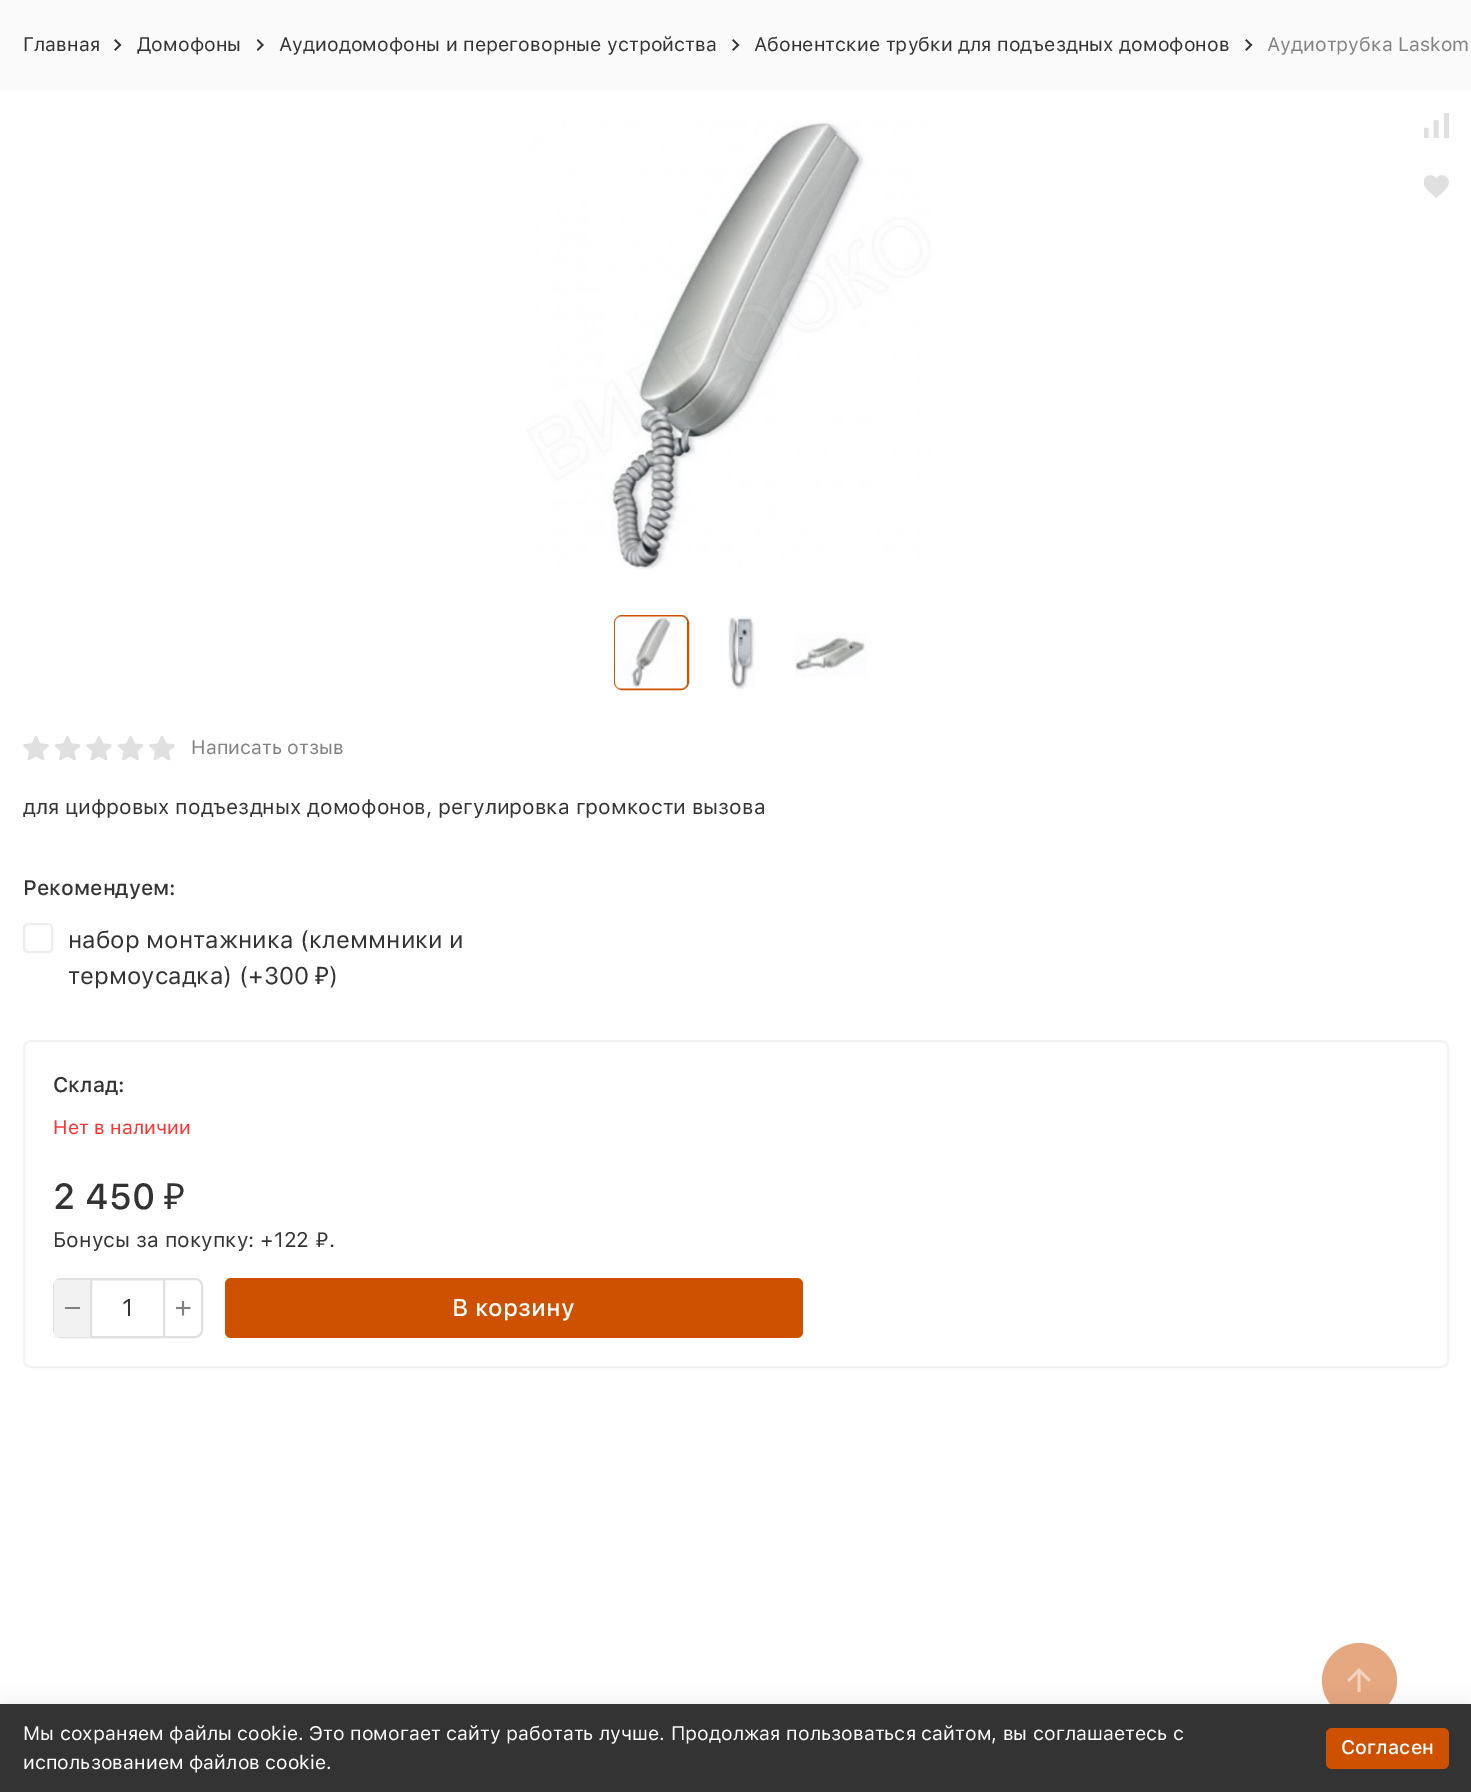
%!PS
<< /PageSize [1471 1792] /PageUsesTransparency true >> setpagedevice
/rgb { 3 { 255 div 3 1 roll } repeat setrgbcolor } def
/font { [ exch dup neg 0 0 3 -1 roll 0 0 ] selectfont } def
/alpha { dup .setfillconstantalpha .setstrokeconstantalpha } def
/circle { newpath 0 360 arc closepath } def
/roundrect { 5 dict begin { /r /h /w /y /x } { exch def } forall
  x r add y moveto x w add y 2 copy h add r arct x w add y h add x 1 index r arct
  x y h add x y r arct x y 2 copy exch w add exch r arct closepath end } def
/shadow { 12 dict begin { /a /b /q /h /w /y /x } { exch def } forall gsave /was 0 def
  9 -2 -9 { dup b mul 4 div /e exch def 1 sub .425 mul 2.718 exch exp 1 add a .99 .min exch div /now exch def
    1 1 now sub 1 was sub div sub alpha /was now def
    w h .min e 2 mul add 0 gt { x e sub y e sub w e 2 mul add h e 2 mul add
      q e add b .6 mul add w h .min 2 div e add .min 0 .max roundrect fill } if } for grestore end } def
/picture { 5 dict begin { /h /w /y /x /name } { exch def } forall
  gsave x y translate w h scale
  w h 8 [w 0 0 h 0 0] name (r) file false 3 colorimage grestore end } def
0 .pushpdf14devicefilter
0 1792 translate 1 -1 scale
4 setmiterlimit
255 255 255 rgb
0 0 1471 1792 rectfill
250 250 250 rgb
0 0 1471 90 rectfill
(img/1.rgb) 114 39 8 12 picture
(img/2.rgb) 257 39 7 12 picture
(img/1.rgb) 732 39 8 12 picture
(img/1.rgb) 1245 39 8 12 picture
(img/3.rgb) 527 121 404 449 picture
205 81 0 rgb
2 setlinewidth
615 616 73 73 7 roundrect stroke
(img/4.rgb) 615 616 72 73 picture
(img/5.rgb) 728 616 27 73 picture
(img/6.rgb) 795 633 72 44 picture
(img/7.rgb) 1424 113 25 25 picture
(img/8.rgb) 1424 175 25 23 picture
(img/9.rgb) 23 736 26 25 picture
(img/10.rgb) 54 736 27 25 picture
(img/9.rgb) 86 736 26 25 picture
(img/10.rgb) 117 736 27 25 picture
(img/9.rgb) 149 736 26 25 picture
237 237 237 rgb
24 924 28 28 4 roundrect stroke
242 242 242 rgb
24 1041 1424 326 7 roundrect stroke
224 224 224 rgb
54 1279 148 58 7 roundrect stroke
242 242 242 rgb
54 1280 36 57 rectfill
130 130 130 rgb
65 1307 15 2 rectfill
224 224 224 rgb
91 1279 73 58 rectstroke
(img/11.rgb) 176 1301 15 15 picture
205 81 0 rgb
225 1278 578 60 6 roundrect fill
230 168 128 rgb
1359.5 1680.5 37.5 circle fill
(img/12.rgb) 1347 1668 24 24 picture
0 0 0 rgb
0 1704 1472 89 0 11 0.07 shadow
51 51 51 rgb
0 1704 1471 88 rectfill
205 81 0 rgb
1326 1728 123 41 6 roundrect fill
/SFProText-Regular 19.5 font
51 51 51 rgb
[
  [(Главная) 23 51]
  [(Домофоны) 137 51]
  [(Аудиодомофоны и переговорные устройства) 279 51]
  [(Абонентские трубки для подъездных домофонов) 754 51]
] { aload pop moveto show } forall
130 130 130 rgb
1267 51 moveto (Аудиотрубка Laskom) show
191 754 moveto (Написать отзыв) show
/SFProText-Regular 21 font
51 51 51 rgb
23 814 moveto (для цифровых подъездных домофонов, регулировка громкости вызова) show
/SFProText-Medium 21 font
23 895 moveto (Рекомендуем:) show
/SFProText-Regular 24 font
68 948 moveto (набор монтажника \(клеммники и) show
68 984 moveto (термоусадка\) \(+300) show
/NotoSans-Regular 24 font
315 984 moveto (₽) show
/SFProText-Regular 24 font
329 984 moveto (\)) show
/SFProText-Medium 21 font
53 1092 moveto (Склад:) show
/SFProText-Regular 19.5 font
255 49 49 rgb
53 1134 moveto (Нет в наличии) show
/SFProText-Medium 36 font
51 51 51 rgb
53 1209 moveto (2 450) show
/NotoSans-Regular 36 font
164 1209 moveto (₽) show
/SFProText-Regular 21 font
53 1247 moveto (Бонусы за покупку: +122 ₽.) show
/SFProText-Regular 24 font
122 1316 moveto (1) show
/SFProText-Medium 24 font
255 255 255 rgb
452 1316 moveto (В корзину) show
/SFProText-Regular 19.5 font
23 1740 moveto (Мы сохраняем файлы cookie. Это помогает сайту работать лучше. Продолжая пользоваться сайтом, вы соглашаетесь с) show
23 1769 moveto (использованием файлов cookie.) show
/SFProText-Medium 19.5 font
1341 1754 moveto (Согласен) show
.poppdf14devicefilter showpage
